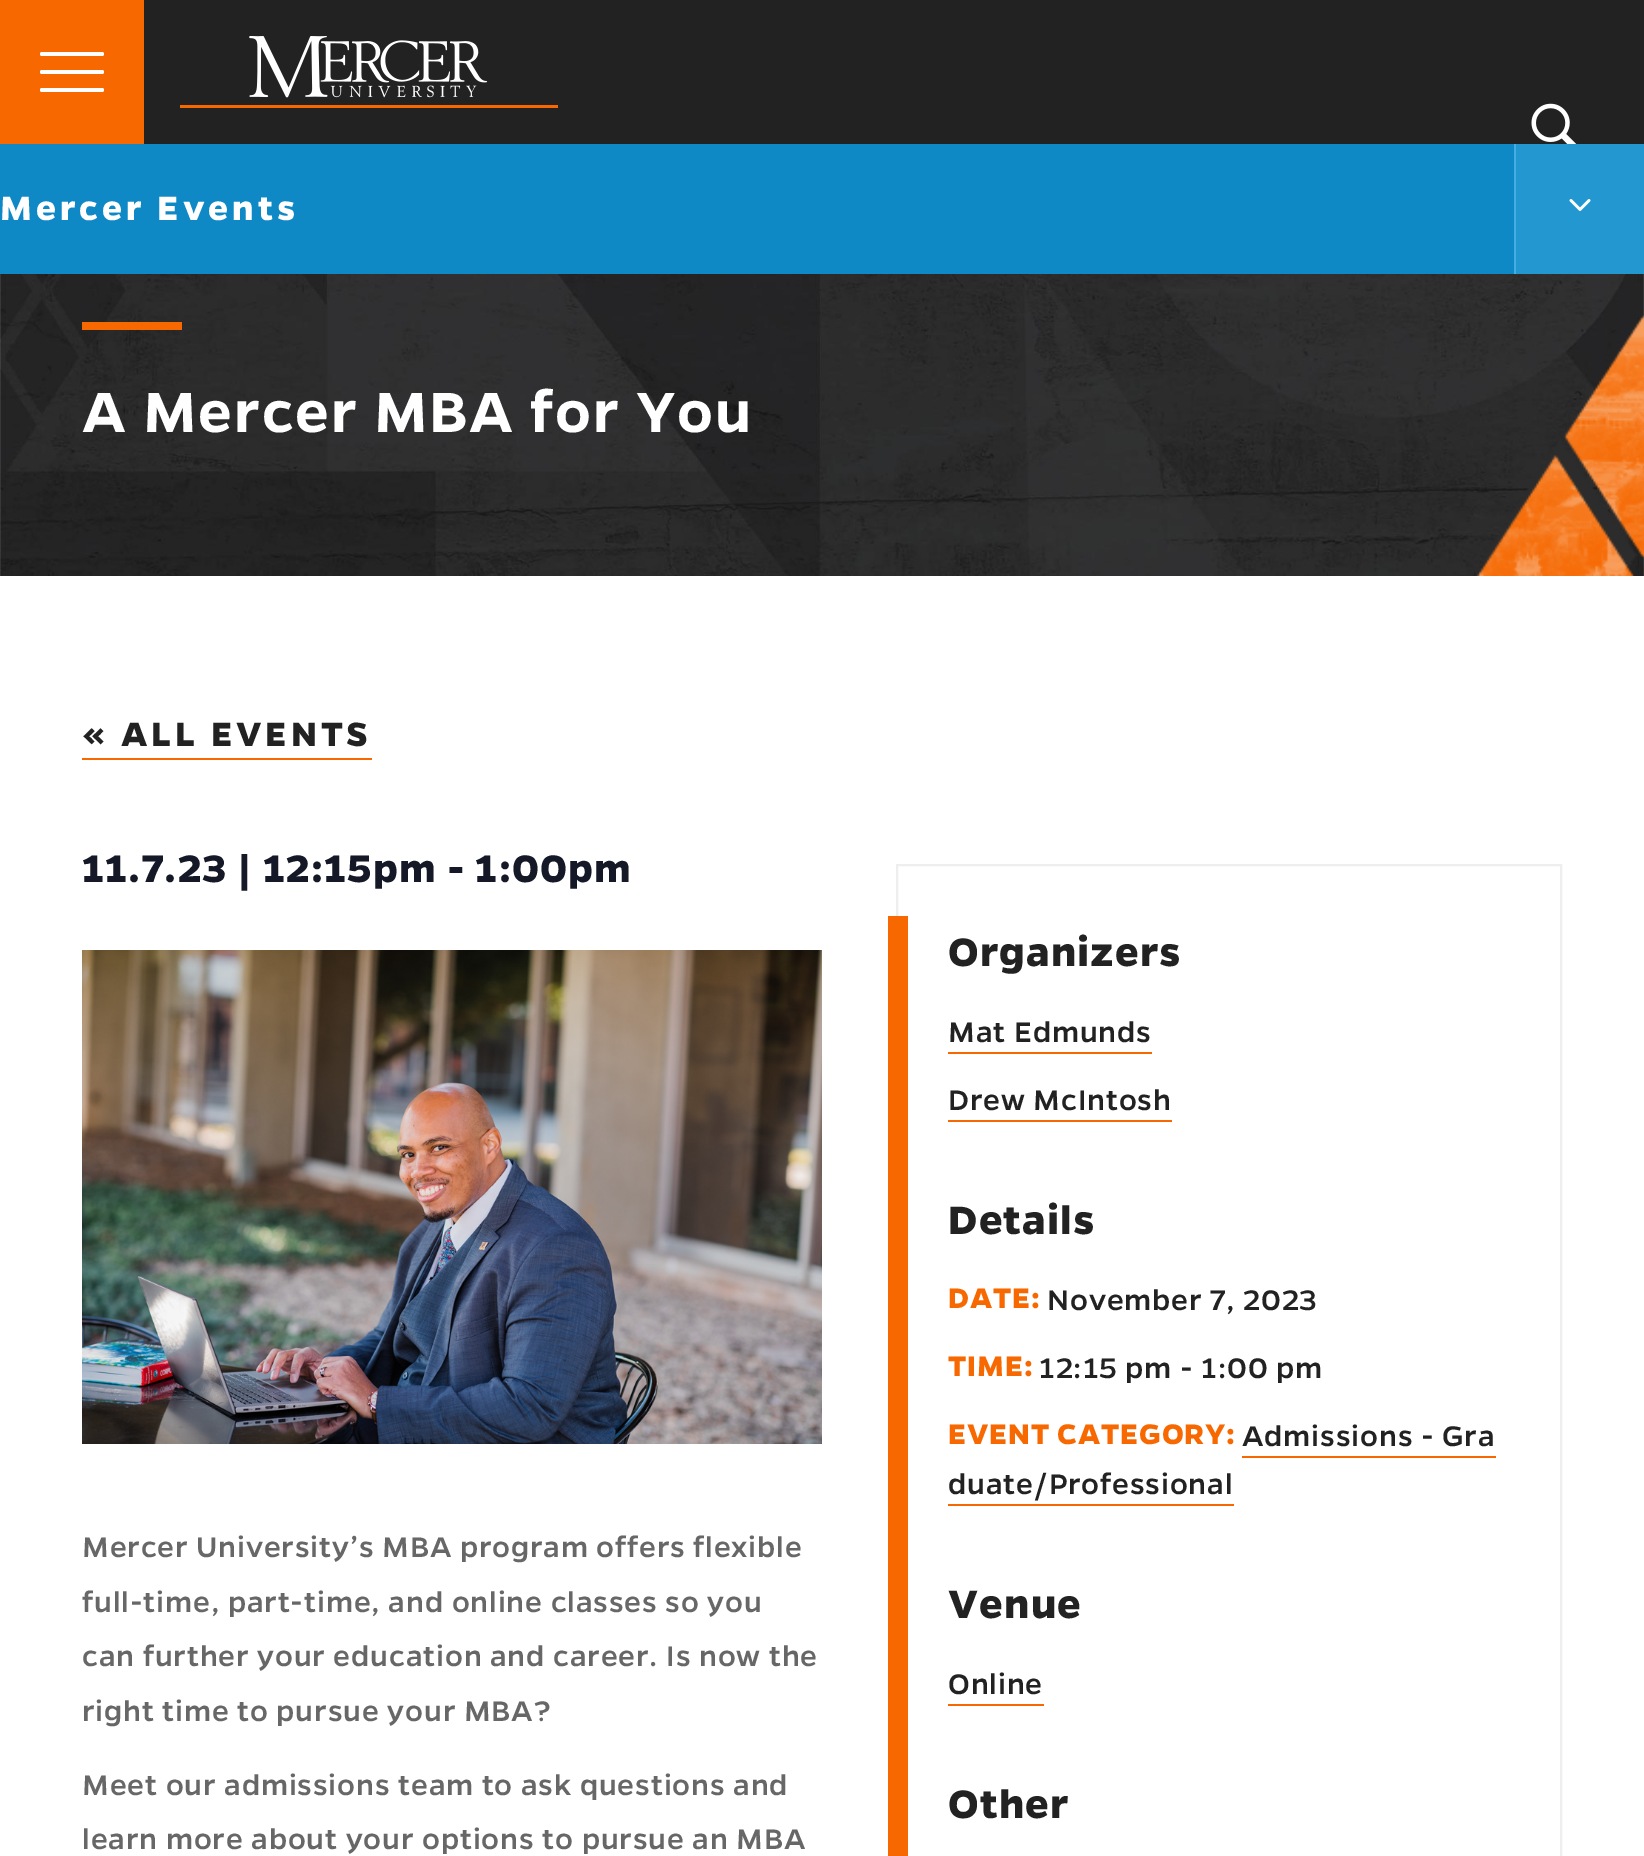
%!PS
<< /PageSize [1644 1856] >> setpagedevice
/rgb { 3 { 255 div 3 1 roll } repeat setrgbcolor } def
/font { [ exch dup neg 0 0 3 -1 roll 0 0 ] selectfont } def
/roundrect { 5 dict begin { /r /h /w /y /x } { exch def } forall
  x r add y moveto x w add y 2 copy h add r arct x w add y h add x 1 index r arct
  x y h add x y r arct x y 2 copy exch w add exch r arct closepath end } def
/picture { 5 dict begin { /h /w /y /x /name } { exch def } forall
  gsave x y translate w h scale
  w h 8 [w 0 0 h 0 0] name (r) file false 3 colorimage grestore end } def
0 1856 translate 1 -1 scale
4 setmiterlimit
255 255 255 rgb
0 0 1644 1856 rectfill
247 104 0 rgb
0 0 144 144 rectfill
255 255 255 rgb
40 70 64 4 2 roundrect fill
40 52 64 4 2 roundrect fill
40 88 64 4 2 roundrect fill
34 34 34 rgb
144 0 1500 144 rectfill
(img/1.rgb) 180 36 378 72 picture
(img/2.rgb) 1531 103 46 41 picture
[
  [0 144 1514 130 14 137 198]
  [1516 144 128 130 34 151 208]
  [1514 144 2 130 68 173 225]
] { aload pop rgb rectfill } forall
(img/3.rgb) 1569 199 22 12 picture
(img/4.rgb) 0 274 1644 302 picture
247 104 0 rgb
82 322 100 8 rectfill
(img/5.rgb) 1476 315 168 261 picture
82 758 290 2 rectfill
(img/6.rgb) 82 950 740 494 picture
238 238 238 rgb
2 setlinewidth
897 865 664 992 rectstroke
[
  [888 916 20 940 247 104 0]
  [948 1052 204 2 247 104 0]
  [948 1120 224 2 247 104 0]
  [1242 1456 254 2 247 104 0]
  [948 1504 286 2 247 104 0]
  [948 1704 96 2 247 104 0]
] { aload pop rgb rectfill } forall
/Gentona-Regular 38 font
255 255 255 rgb
0 220 moveto 4 0 (Mercer Events) ashow
/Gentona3-Regular 64 font
82 432 moveto 2 0 (A Mercer MBA for You) ashow
/Gentona-Regular 38 font
34 34 34 rgb
82 746 moveto 4 0 (« ALL EVENTS) ashow
/Gentona-Regular 43.25 font
20 24 39 rgb
82 882 moveto 1.2 0 (11.7.23 | 12:15pm - 1:00pm) ashow
/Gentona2-Regular 32 font
103 103 103 rgb
82 1557 moveto 0.9 0 (Mercer University’s MBA program offers flexible) ashow
82 1612 moveto 0.9 0 (full-time, part-time, and online classes so you) ashow
82 1666 moveto 0.9 0 (can further your education and career. Is now the) ashow
82 1721 moveto 0.9 0 (right time to pursue your MBA?) ashow
82 1795 moveto 0.9 0 (Meet our admissions team to ask questions and) ashow
82 1849 moveto 0.9 0 (learn more about your options to pursue an MBA) ashow
/Gentona-Regular 44.75 font
34 34 34 rgb
948 966 moveto 1.2 0 (Organizers) ashow
/Gentona2-Regular 32 font
948 1042 moveto 0.9 0 (Mat Edmunds) ashow
948 1110 moveto 0.9 0 (Drew McIntosh) ashow
/Gentona-Regular 44.75 font
948 1234 moveto 1.2 0 (Details) ashow
/Gentona-Regular 32 font
247 104 0 rgb
948 1308 moveto 0.9 0 (DATE:) ashow
/Gentona2-Regular 32 font
34 34 34 rgb
1047 1310 moveto 0.9 0 (November 7, 2023) ashow
/Gentona-Regular 32 font
247 104 0 rgb
948 1376 moveto 0.9 0 (TIME:) ashow
/Gentona2-Regular 32 font
34 34 34 rgb
1039 1378 moveto 0.9 0 (12:15 pm - 1:00 pm) ashow
/Gentona-Regular 32 font
247 104 0 rgb
948 1444 moveto 0.9 0 (EVENT CATEGORY:) ashow
/Gentona2-Regular 32 font
34 34 34 rgb
1242 1446 moveto 0.9 0 (Admissions - Gra) ashow
948 1494 moveto 0.9 0 (duate/Professional) ashow
/Gentona-Regular 44.75 font
948 1618 moveto 1.2 0 (Venue) ashow
/Gentona2-Regular 32 font
948 1694 moveto 0.9 0 (Online) ashow
/Gentona-Regular 44.75 font
948 1818 moveto 1.2 0 (Other) ashow
showpage
